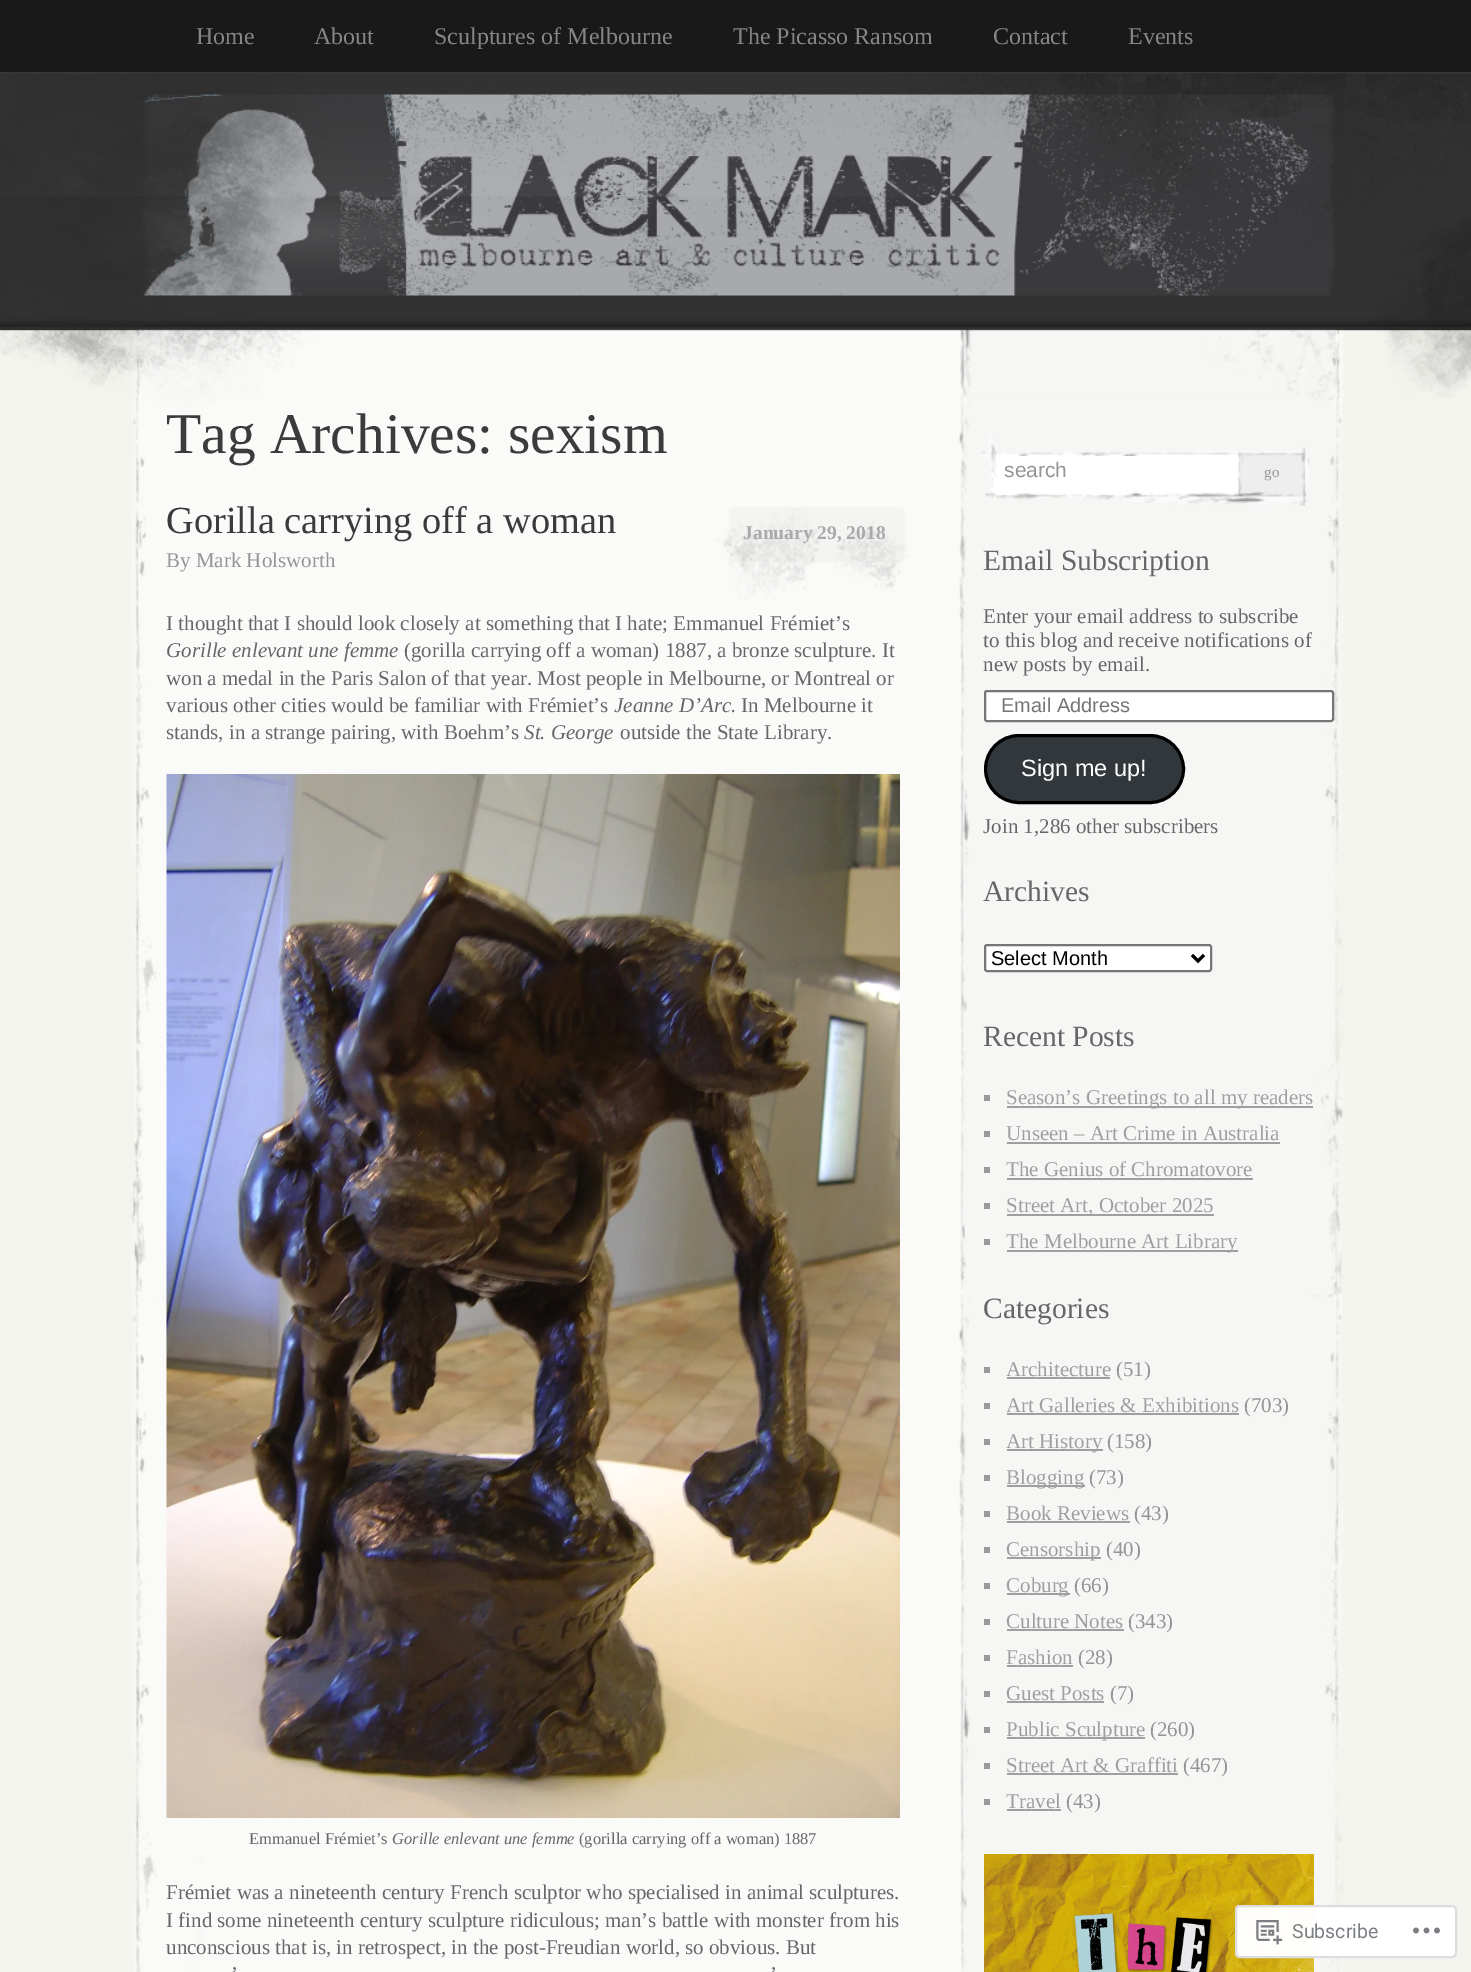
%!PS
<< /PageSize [1471 1972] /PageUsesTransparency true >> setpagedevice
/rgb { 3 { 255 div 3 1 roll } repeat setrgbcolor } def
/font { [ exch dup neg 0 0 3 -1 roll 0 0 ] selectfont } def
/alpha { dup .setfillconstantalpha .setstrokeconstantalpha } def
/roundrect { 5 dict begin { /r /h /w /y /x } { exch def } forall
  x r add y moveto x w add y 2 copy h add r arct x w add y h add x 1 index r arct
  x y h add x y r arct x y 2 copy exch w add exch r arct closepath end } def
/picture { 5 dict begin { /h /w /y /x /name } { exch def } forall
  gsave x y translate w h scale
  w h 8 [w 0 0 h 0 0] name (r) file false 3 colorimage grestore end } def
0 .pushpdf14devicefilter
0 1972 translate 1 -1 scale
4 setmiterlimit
243 244 238 rgb
0 0 1471 1972 rectfill
25 25 25 rgb
0 0 1471 72 rectfill
55 55 55 rgb
0 72 1471 2 rectfill
(img/1.rgb) 0 74 1471 256 picture
(img/3.rgb) 140 94 1195 202 picture
(img/4.rgb) 131 397 1213 1575 picture
(img/2.rgb) 0 73 1471 325 picture
(img/5.rgb) 716 507 193 94 picture
248 250 247 rgb
167 914 38 898 rectfill
(img/6.rgb) 166 774 734 1044 picture
(img/7.rgb) 980 435 330 71 picture
255 255 255 rgb
1019 456 193 2 rectfill
985 691 348 30 2 roundrect gsave fill grestore
118 118 118 rgb
2 setlinewidth
stroke
50 55 60 rgb
985.5 735.5 198 67 33.5 roundrect gsave fill grestore
0 0 0 rgb
3 setlinewidth
stroke
255 255 255 rgb
985 945 226 26 2 roundrect gsave fill grestore
118 118 118 rgb
2 setlinewidth
stroke
0 0 0 rgb
3 setlinewidth
1192 955 moveto 1198 961 lineto 1204 955 lineto stroke
[
  [984 1095 6 6 153 153 153]
  [1007 1106 306 2 159 159 159]
  [984 1131 6 6 153 153 153]
  [1007 1142 273 2 159 159 159]
  [984 1167 6 6 153 153 153]
  [1007 1178 246 2 159 159 159]
  [984 1203 6 6 153 153 153]
  [1007 1214 207 2 159 159 159]
  [984 1239 6 6 153 153 153]
  [1007 1250 231 2 159 159 159]
  [984 1367 6 6 153 153 153]
  [1007 1377 103 2 159 159 159]
  [984 1403 6 6 153 153 153]
  [1007 1413 232 2 159 159 159]
  [984 1439 6 6 153 153 153]
  [1007 1449 96 2 159 159 159]
  [984 1475 6 6 153 153 153]
  [1007 1485 78 2 159 159 159]
  [984 1511 6 6 153 153 153]
  [1007 1521 123 2 159 159 159]
  [984 1547 6 6 153 153 153]
  [1007 1557 94 2 159 159 159]
  [984 1583 6 6 153 153 153]
  [1007 1593 63 2 159 159 159]
  [984 1619 6 6 153 153 153]
  [1007 1629 117 2 159 159 159]
  [984 1655 6 6 153 153 153]
  [1007 1665 66 2 159 159 159]
  [984 1691 6 6 153 153 153]
  [1007 1701 97 2 159 159 159]
  [984 1727 6 6 153 153 153]
  [1007 1737 138 2 159 159 159]
  [984 1763 6 6 153 153 153]
  [1007 1773 171 2 159 159 159]
  [984 1799 6 6 153 153 153]
  [1007 1809 54 2 159 159 159]
] { aload pop rgb rectfill } forall
(img/8.rgb) 984 1854 330 118 picture
0.98 alpha
255 255 255 rgb
1235 1905 222 53 5 roundrect fill
220 220 222 rgb
2 setlinewidth
1236 1906 220 51 4 roundrect stroke
1 alpha
(img/9.rgb) 1256 1920 27 25 picture
(img/10.rgb) 1413 1927 27 7 picture
/LiberationSerif-Regular 24 font
134 134 134 rgb
[
  [(Home) 196 44]
  [(About) 314 44]
  [(Sculptures of Melbourne) 434 44]
  [(The Picasso Ransom) 733 44]
  [(Contact) 993 44]
  [(Events) 1128 44]
] { aload pop moveto show } forall
/LiberationSerif-Regular 57.5 font
59 59 59 rgb
166 453 moveto (Tag Archives: sexism) show
/LiberationSerif-Regular 38.4 font
166 533 moveto (Gorilla carrying off a woman) show
/LiberationSerif-Bold 19.5 font
169 169 169 rgb
743 539 moveto (January 29, 2018) show
/LiberationSerif-Regular 21 font
148 148 148 rgb
166 567 moveto (By Mark Holsworth) show
102 102 102 rgb
166 630 moveto (I thought that I should look closely at something that I hate; Emmanuel Frémiet’s) show
/LiberationSerif-Italic 21 font
166 657 moveto (Gorille enlevant une femme) show
/LiberationSerif-Regular 21 font
[
  [(\(gorilla carrying off a woman\) 1887, a bronze sculpture. It) 404 657]
  [(won a medal in the Paris Salon of that year. Most people in Melbourne, or Montreal or) 166 685]
  [(various other cities would be familiar with Frémiet’s) 166 712]
] { aload pop moveto show } forall
/LiberationSerif-Italic 21 font
614 712 moveto (Jeanne D’Arc.) show
/LiberationSerif-Regular 21 font
741 712 moveto (In Melbourne it) show
166 739 moveto (stands, in a strange pairing, with Boehm’s) show
/LiberationSerif-Italic 21 font
524 739 moveto (St. George) show
/LiberationSerif-Regular 21 font
620 739 moveto (outside the State Library.) show
/LiberationSerif-Regular 16.5 font
249 1844 moveto (Emmanuel Frémiet’s) show
/LiberationSerif-Italic 16.5 font
392 1844 moveto (Gorille enlevant une femme) show
/LiberationSerif-Regular 16.5 font
579 1844 moveto (\(gorilla carrying off a woman\) 1887) show
/LiberationSerif-Regular 21 font
[
  [(Frémiet was a nineteenth century French sculptor who specialised in animal sculptures.) 166 1899]
  [(I find some nineteenth century sculpture ridiculous; man’s battle with monster from his) 166 1927]
  [(unconscious that is, in retrospect, in the post-Freudian world, so obvious. But) 166 1954]
  [(’) 231 1981]
  [(’) 770 1981]
] { aload pop moveto show } forall
/LiberationSans-Regular 21 font
148 148 148 rgb
1004 477 moveto (search) show
/LiberationSerif-Regular 15 font
1264 477 moveto (go) show
/LiberationSerif-Regular 29.5 font
102 102 102 rgb
983 570 moveto (Email Subscription) show
/LiberationSerif-Regular 21 font
[
  [(Enter your email address to subscribe) 983 623]
  [(to this blog and receive notifications of) 983 647]
  [(new posts by email.) 983 671]
] { aload pop moveto show } forall
/LiberationSans-Regular 20 font
117 117 117 rgb
1001 712 moveto (Email Address) show
/LiberationSans-Regular 23.5 font
255 255 255 rgb
1021 776 moveto (Sign me up!) show
/LiberationSerif-Regular 21 font
102 102 102 rgb
983 833 moveto (Join 1,286 other subscribers) show
/LiberationSerif-Regular 29.5 font
983 901 moveto (Archives) show
/LiberationSans-Regular 20 font
0 0 0 rgb
991 965 moveto (Select Month) show
/LiberationSerif-Regular 29.5 font
102 102 102 rgb
983 1046 moveto (Recent Posts) show
/LiberationSerif-Regular 21 font
159 159 159 rgb
[
  [(Season’s Greetings to all my readers) 1006 1104]
  [(Unseen – Art Crime in Australia) 1006 1140]
  [(The Genius of Chromatovore) 1006 1176]
  [(Street Art, October 2025) 1006 1212]
  [(The Melbourne Art Library) 1006 1248]
] { aload pop moveto show } forall
/LiberationSerif-Regular 29.5 font
102 102 102 rgb
983 1318 moveto (Categories) show
/LiberationSerif-Regular 21 font
159 159 159 rgb
1006 1376 moveto (Architecture) show
148 148 148 rgb
1116 1376 moveto (\(51\)) show
159 159 159 rgb
1006 1412 moveto (Art Galleries & Exhibitions) show
148 148 148 rgb
1244 1412 moveto (\(703\)) show
159 159 159 rgb
1006 1448 moveto (Art History) show
148 148 148 rgb
1107 1448 moveto (\(158\)) show
159 159 159 rgb
1006 1484 moveto (Blogging) show
148 148 148 rgb
1089 1484 moveto (\(73\)) show
159 159 159 rgb
1006 1520 moveto (Book Reviews) show
148 148 148 rgb
1134 1520 moveto (\(43\)) show
159 159 159 rgb
1006 1556 moveto (Censorship) show
148 148 148 rgb
1106 1556 moveto (\(40\)) show
159 159 159 rgb
1006 1592 moveto (Coburg) show
148 148 148 rgb
1074 1592 moveto (\(66\)) show
159 159 159 rgb
1006 1628 moveto (Culture Notes) show
148 148 148 rgb
1128 1628 moveto (\(343\)) show
159 159 159 rgb
1006 1664 moveto (Fashion) show
148 148 148 rgb
1078 1664 moveto (\(28\)) show
159 159 159 rgb
1006 1700 moveto (Guest Posts) show
148 148 148 rgb
1110 1700 moveto (\(7\)) show
159 159 159 rgb
1006 1736 moveto (Public Sculpture) show
148 148 148 rgb
1150 1736 moveto (\(260\)) show
159 159 159 rgb
1006 1772 moveto (Street Art & Graffiti) show
148 148 148 rgb
1183 1772 moveto (\(467\)) show
159 159 159 rgb
1006 1808 moveto (Travel) show
148 148 148 rgb
1066 1808 moveto (\(43\)) show
/Roboto-Regular 19.5 font
123 127 132 rgb
1292 1938 moveto (Subscribe) show
.poppdf14devicefilter showpage
